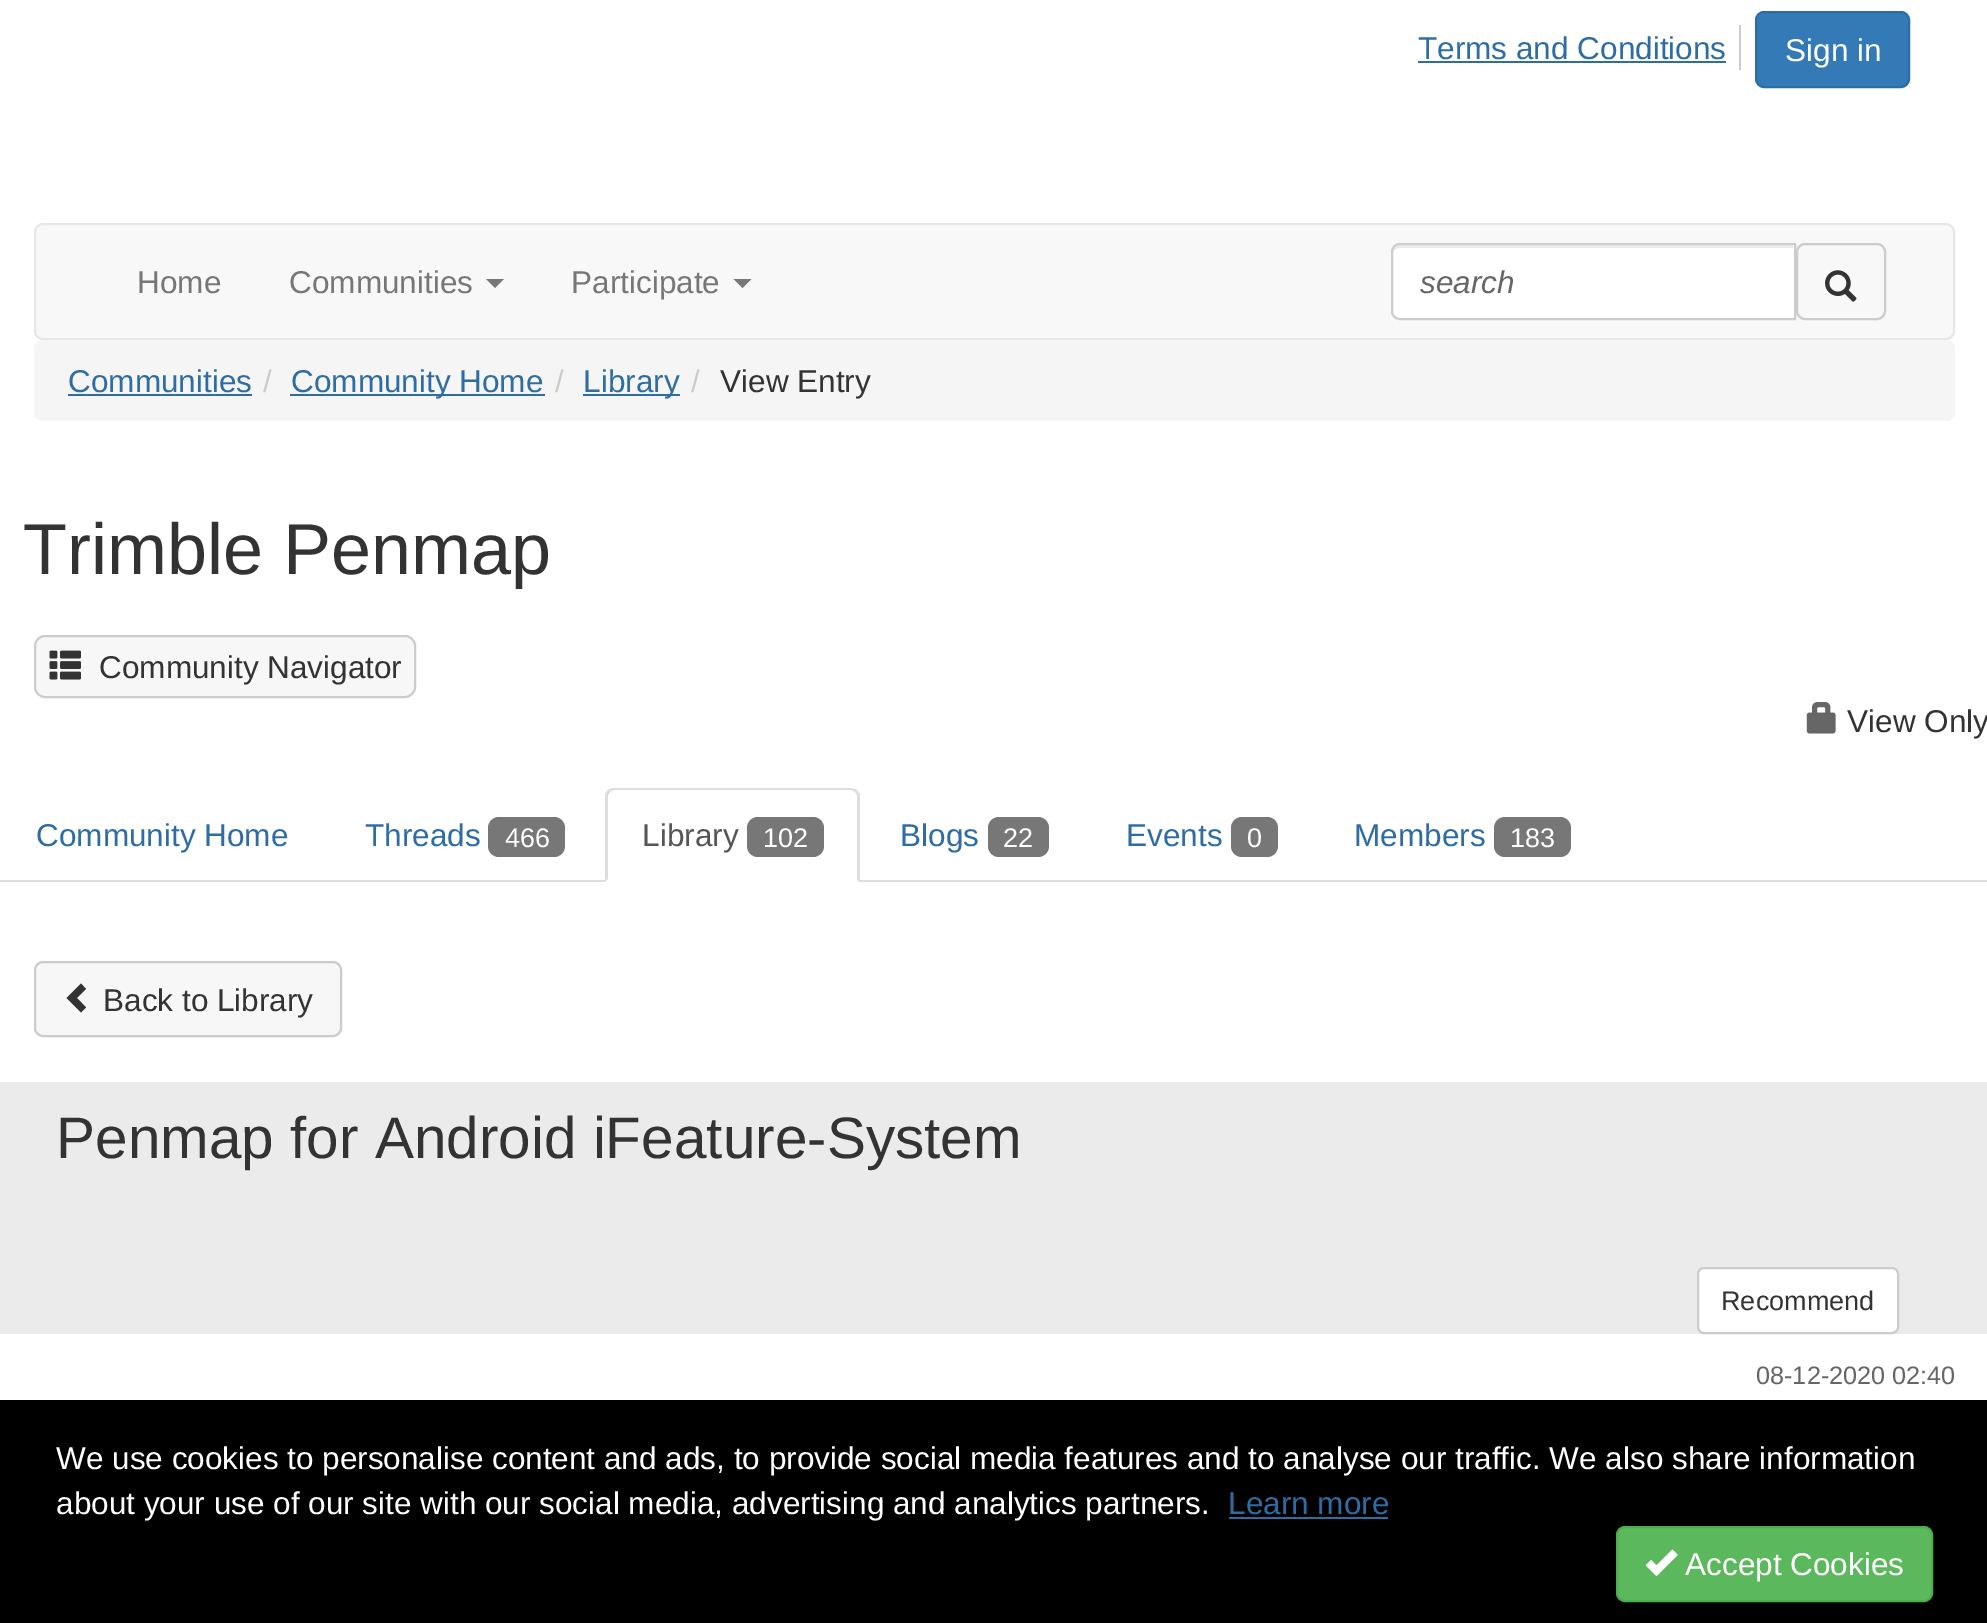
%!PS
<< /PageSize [1987 1623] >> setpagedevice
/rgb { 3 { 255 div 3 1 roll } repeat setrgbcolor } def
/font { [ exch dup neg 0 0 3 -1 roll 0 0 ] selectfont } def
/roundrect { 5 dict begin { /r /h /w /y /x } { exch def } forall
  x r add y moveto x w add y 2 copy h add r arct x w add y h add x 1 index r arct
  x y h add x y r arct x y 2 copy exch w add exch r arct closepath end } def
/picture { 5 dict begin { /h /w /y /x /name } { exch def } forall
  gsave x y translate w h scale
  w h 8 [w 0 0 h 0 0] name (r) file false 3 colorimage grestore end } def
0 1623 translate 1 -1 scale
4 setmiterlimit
255 255 255 rgb
0 0 1987 1623 rectfill
204 204 204 rgb
1739 25 2 45 rectfill
46 109 164 rgb
1418 61 308 2 rectfill
51 122 183 rgb
1756 12 153 75 8 roundrect gsave fill grestore
46 109 164 rgb
2 setlinewidth
stroke
248 248 248 rgb
35 224 1919 115 8 roundrect gsave fill grestore
231 231 231 rgb
stroke
119 119 119 rgb
486 279 moveto 504 279 lineto 495 288 lineto closepath fill
733.5 279 moveto 751.5 279 lineto 742.5 288 lineto closepath fill
255 255 255 rgb
1400 243 moveto 1796 243 lineto 1796 320 lineto 1400 320 lineto 1395 320 1391 316 1391 311 curveto 1391 252 lineto 1391 247 1395 243 1400 243 curveto closepath fill
236 236 236 rgb
1400 248 moveto 1793 248 lineto 1793 245 lineto 1400 245 lineto 1396 245 1393 248 1393 252 curveto 1393 254 lineto 1393 251 1396 248 1400 248 curveto closepath fill
204 204 204 rgb
1400 244 moveto 1795 244 lineto 1795 319 lineto 1400 319 lineto 1395.5 319 1392 315.5 1392 311 curveto 1392 252 lineto 1392 247.5 1395.5 244 1400 244 curveto closepath stroke
1797 244 88 75 8 roundrect stroke
(img/1.rgb) 1825 270 32 32 picture
245 245 245 rgb
34 340 1921 81 9 roundrect fill
[
  [68 394 184 2 46 109 164]
  [290 394 255 2 46 109 164]
  [583 394 97 2 46 109 164]
] { aload pop rgb rectfill } forall
247 247 247 rgb
35 636 380 61 10 roundrect gsave fill grestore
204 204 204 rgb
stroke
(img/2.rgb) 49 650 32 30 picture
(img/3.rgb) 1806 702 30 32 picture
221 221 221 rgb
0 880 1987 2 rectfill
119 119 119 rgb
488 817 77 40 11 roundrect fill
255 255 255 rgb
614 788 moveto 851 788 lineto 856 788 860 792 860 797 curveto 860 882 lineto 605 882 lineto 605 797 lineto 605 792 609 788 614 788 curveto closepath fill
221 221 221 rgb
614 788 moveto 612 788 610 789 608 790 curveto 610 792 lineto 611 791 612 790 614 790 curveto 850 790 lineto 852 790 854 791 855 792 curveto 857 790 lineto 855 789 852 788 850 788 curveto closepath fill
857 790 moveto 860 794 lineto 860 882 lineto 857 880 lineto 857 795 lineto 855 792 lineto closepath fill
605 882 moveto 608 879 lineto 608 795 lineto 610 792 lineto 608 790 lineto 607 791 606 793 605 794 curveto closepath fill
119 119 119 rgb
747 817 77 40 11 roundrect fill
988 817 61 40 11 roundrect fill
1231 817 47 40 11 roundrect fill
1494 817 77 40 11 roundrect fill
247 247 247 rgb
35 962 306 74 8 roundrect gsave fill grestore
204 204 204 rgb
stroke
51 51 51 rgb
86 989 moveto 77 998 lineto 86 1007.5 lineto 81 1012.5 lineto 66.5 998 lineto 81 983.5 lineto closepath fill
235 235 235 rgb
0 1082 1987 252 rectfill
255 255 255 rgb
1698 1268 200 65 6 roundrect gsave fill grestore
204 204 204 rgb
stroke
0 0 0 rgb
0 1400 1987 223 rectfill
46 109 164 rgb
1229 1517 159 2 rectfill
92 184 92 rgb
1617 1527 315 74 8 roundrect gsave fill grestore
76 174 76 rgb
stroke
(img/4.rgb) 1645 1549 33 27 picture
/LiberationSans-Regular 31.5 font
46 109 164 rgb
1418 59 moveto (Terms and Conditions) show
255 255 255 rgb
1785 61 moveto (Sign in) show
119 119 119 rgb
[
  [(Home) 137 293]
  [(Communities) 289 293]
  [(Participate) 571 293]
] { aload pop moveto show } forall
/LiberationSans-Italic 31.5 font
102 102 102 rgb
1420 293 moveto (search) show
/LiberationSans-Regular 31.5 font
46 109 164 rgb
68 392 moveto (Communities) show
204 204 204 rgb
263 392 moveto (/) show
46 109 164 rgb
291 392 moveto (Community Home) show
204 204 204 rgb
555 392 moveto (/) show
46 109 164 rgb
583 392 moveto (Library) show
204 204 204 rgb
691 392 moveto (/) show
51 51 51 rgb
720 392 moveto (View Entry) show
/LiberationSans-Regular 72 font
23 574 moveto (Trimble Penmap) show
/LiberationSans-Regular 31.5 font
99 678 moveto (Community Navigator) show
1847 732 moveto (View Only) show
46 109 164 rgb
36 846 moveto (Community Home) show
365 846 moveto (Threads) show
/LiberationSans-Regular 27 font
255 255 255 rgb
505 847 moveto (466) show
/LiberationSans-Regular 31.5 font
85 85 85 rgb
642 846 moveto (Library) show
/LiberationSans-Regular 27 font
255 255 255 rgb
763 847 moveto (102) show
/LiberationSans-Regular 31.5 font
46 109 164 rgb
900 846 moveto (Blogs) show
/LiberationSans-Regular 27 font
255 255 255 rgb
1003 847 moveto (22) show
/LiberationSans-Regular 31.5 font
46 109 164 rgb
1126 846 moveto (Events) show
/LiberationSans-Regular 27 font
255 255 255 rgb
1247 847 moveto (0) show
/LiberationSans-Regular 31.5 font
46 109 164 rgb
1354 846 moveto (Members) show
/LiberationSans-Regular 27 font
255 255 255 rgb
1510 847 moveto (183) show
/LiberationSans-Regular 31.5 font
51 51 51 rgb
103 1011 moveto (Back to Library) show
/LiberationSans-Regular 58.5 font
56 1158 moveto (Penmap for Android iFeature-System) show
/LiberationSans-Regular 27 font
1721 1310 moveto (Recommend) show
/LiberationSans-Regular 25.25 font
102 102 102 rgb
1756 1384 moveto (08-12-2020 02:40) show
/LiberationSans-Regular 31.5 font
255 255 255 rgb
56 1469 moveto (We use cookies to personalise content and ads, to provide social media features and to analyse our traffic. We also share information) show
56 1514 moveto (about your use of our site with our social media, advertising and analytics partners.) show
46 109 164 rgb
1228 1514 moveto (Learn more) show
255 255 255 rgb
1685 1575 moveto (Accept Cookies) show
showpage
